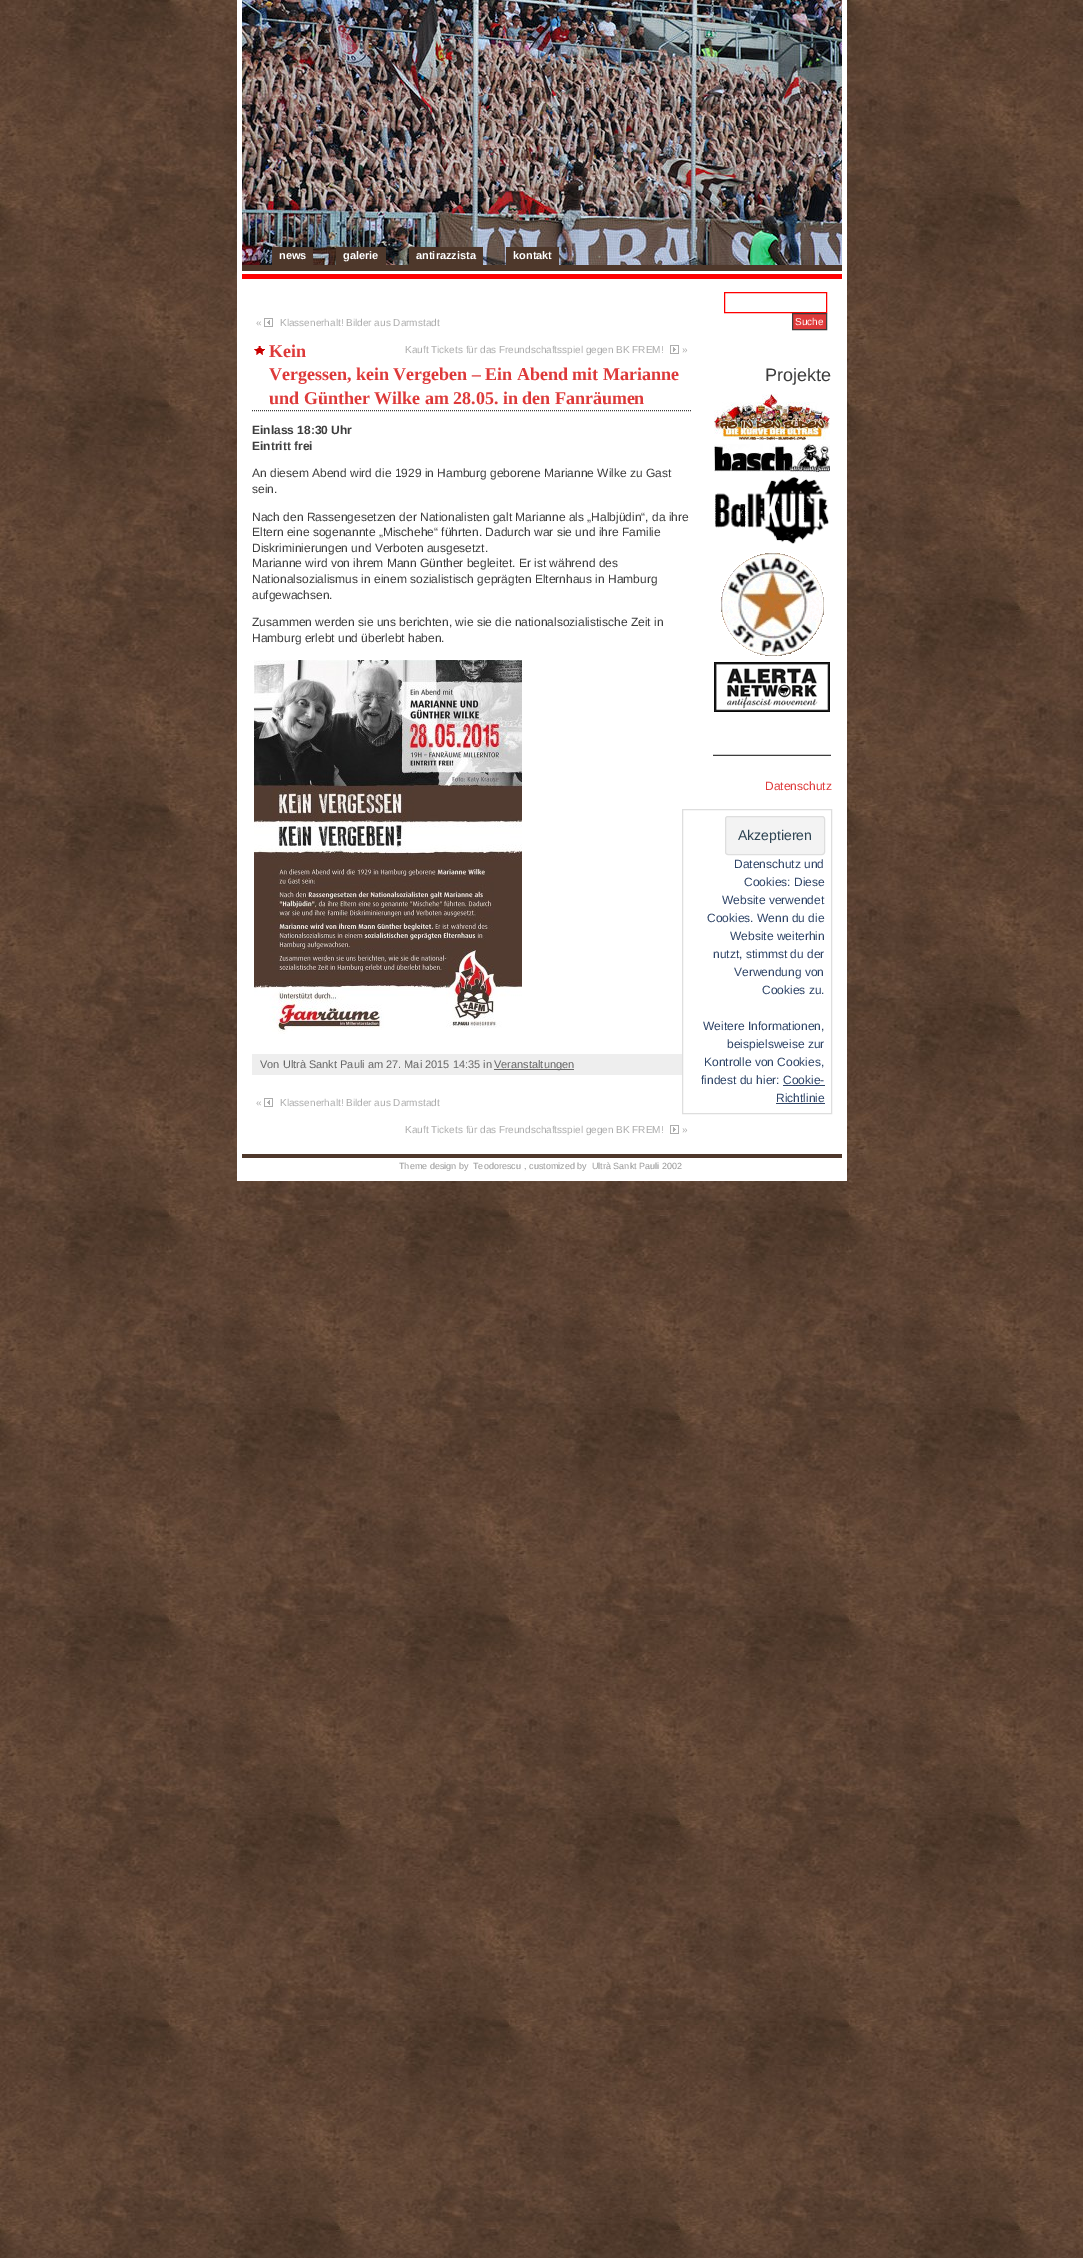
%!PS
<< /PageSize [1083 2258] >> setpagedevice
/rgb { 3 { 255 div 3 1 roll } repeat setrgbcolor } def
/font { [ exch dup neg 0 0 3 -1 roll 0 0 ] selectfont } def
/roundrect { 5 dict begin { /r /h /w /y /x } { exch def } forall
  x r add y moveto x w add y 2 copy h add r arct x w add y h add x 1 index r arct
  x y h add x y r arct x y 2 copy exch w add exch r arct closepath end } def
/picture { 5 dict begin { /h /w /y /x /name } { exch def } forall
  gsave x y translate w h scale
  w h 8 [w 0 0 h 0 0] name (r) file false 3 colorimage grestore end } def
0 2258 translate 1 -1 scale
4 setmiterlimit
255 255 255 rgb
0 0 1083 2258 rectfill
(img/1.rgb) 0 0 1083 2258 picture
237 0 610 1181 rectfill
(img/2.rgb) 242 0 600 265 picture
[
  [272 247 41 18 78 56 43]
  [336 247 50 18 78 56 43]
  [409 247 74 18 78 56 43]
  [506 247 53 18 78 56 43]
] { aload pop rgb rectfill } forall
(img/3.rgb) 264 318 9 9 picture
(img/4.rgb) 670 345 9 9 picture
(img/5.rgb) 254 346 11 9 picture
61 61 61 rgb
[1 1] 0 setdash
252 410.5 moveto 692 410.5 lineto stroke
(img/6.rgb) 254 660 268 374 picture
238 238 238 rgb
252 1054 430 21 rectfill
102 102 102 rgb
494 1069 80 1 rectfill
(img/3.rgb) 264 1098 9 9 picture
(img/4.rgb) 670 1125 9 9 picture
(img/7.rgb) 242 265 600 14 picture
255 0 0 rgb
[] 0 setdash
724.5 292.5 102 20 rectstroke
222 58 58 rgb
792.5 313.5 moveto 826.5 313.5 lineto 826.5 329.5 lineto 792.5 329.5 lineto closepath gsave fill grestore
61 61 61 rgb
stroke
(img/8.rgb) 714 394 116 46 picture
(img/9.rgb) 714 444 116 28 picture
(img/10.rgb) 715 477 114 67 picture
(img/11.rgb) 721 553 103 103 picture
(img/12.rgb) 714 662 116 50 picture
222 222 222 rgb
682.5 809.5 149 304 rectstroke
243 243 243 rgb
725.5 816.5 99 38 2.5 roundrect gsave fill grestore
222 222 222 rgb
stroke
[
  [783 1085 42 1 46 68 103]
  [776 1103 49 1 46 68 103]
  [242 1154 600 4 78 56 43]
] { aload pop rgb rectfill } forall
/LiberationSans-Bold 11 font
255 255 255 rgb
[
  [(news) 279 259]
  [(galerie) 343 259]
  [(antirazzista) 416 259]
  [(kontakt) 513 259]
] { aload pop moveto show } forall
/LiberationSans-Regular 10 font
172 172 172 rgb
[
  [(«) 256 326]
  [(Klassenerhalt! Bilder aus Darmstadt) 280 326]
  [(Kauft Tickets für das Freundschaftsspiel gegen BK FREM!) 405 353]
  [(») 682 353]
] { aload pop moveto show } forall
/LiberationSerif-Bold 18 font
222 58 58 rgb
[
  [(Kein) 269 357]
  [(Vergessen, kein Vergeben – Ein Abend mit Marianne) 269 380]
  [(und Günther Wilke am 28.05. in den Fanräumen) 269 404]
] { aload pop moveto show } forall
/LiberationSans-Bold 12 font
61 61 61 rgb
252 434 moveto (Einlass 18:30 Uhr) show
252 450 moveto (Eintritt frei) show
/LiberationSans-Regular 12 font
[
  [(An diesem Abend wird die 1929 in Hamburg geborene Marianne Wilke zu Gast) 252 477]
  [(sein.) 252 493]
  [(Nach den Rassengesetzen der Nationalisten galt Marianne als „Halbjüdin“, da ihre) 252 521]
  [(Eltern eine sogenannte „Mischehe“ führten. Dadurch war sie und ihre Familie) 252 536]
  [(Diskriminierungen und Verboten ausgesetzt.) 252 552]
  [(Marianne wird von ihrem Mann Günther begleitet. Er ist während des) 252 567]
  [(Nationalsozialismus in einem sozialistisch geprägten Elternhaus in Hamburg) 252 583]
  [(aufgewachsen.) 252 599]
  [(Zusammen werden sie uns berichten, wie sie die nationalsozialistische Zeit in) 252 626]
  [(Hamburg erlebt und überlebt haben.) 252 642]
] { aload pop moveto show } forall
/LiberationSans-Regular 11 font
102 102 102 rgb
260 1068 moveto (Von Ultrà Sankt Pauli am 27. Mai 2015 14:35 in) show
494 1068 moveto (Veranstaltungen) show
/LiberationSans-Regular 10 font
172 172 172 rgb
[
  [(«) 256 1106]
  [(Klassenerhalt! Bilder aus Darmstadt) 280 1106]
  [(Kauft Tickets für das Freundschaftsspiel gegen BK FREM!) 405 1133]
  [(») 682 1133]
] { aload pop moveto show } forall
255 255 255 rgb
795 325 moveto (Suche) show
/LiberationSans-Regular 18 font
61 61 61 rgb
765 381 moveto (Projekte) show
713 760 moveto (——————–) show
/LiberationSans-Regular 12 font
222 58 58 rgb
765 790 moveto (Datenschutz) show
/LiberationSans-Regular 14 font
46 68 83 rgb
738 840 moveto (Akzeptieren) show
/LiberationSans-Regular 12 font
46 68 103 rgb
[
  [(Datenschutz und) 734 868]
  [(Cookies: Diese) 744 886]
  [(Website verwendet) 722 904]
  [(Cookies. Wenn du die) 707 922]
  [(Website weiterhin) 730 940]
  [(nutzt, stimmst du der) 713 958]
  [(Verwendung von) 734 976]
  [(Cookies zu.) 762 994]
  [(Weitere Informationen,) 703 1030]
  [(beispielsweise zur) 727 1048]
  [(Kontrolle von Cookies,) 704 1066]
  [(findest du hier: Cookie-) 701 1084]
  [(Richtlinie) 776 1102]
] { aload pop moveto show } forall
/LiberationSans-Regular 9 font
153 153 153 rgb
[
  [(Theme design by) 399 1169]
  [(Teodorescu) 473 1169]
  [(, customized by) 524 1169]
  [(Ultrà Sankt Pauli 2002) 592 1169]
] { aload pop moveto show } forall
showpage
